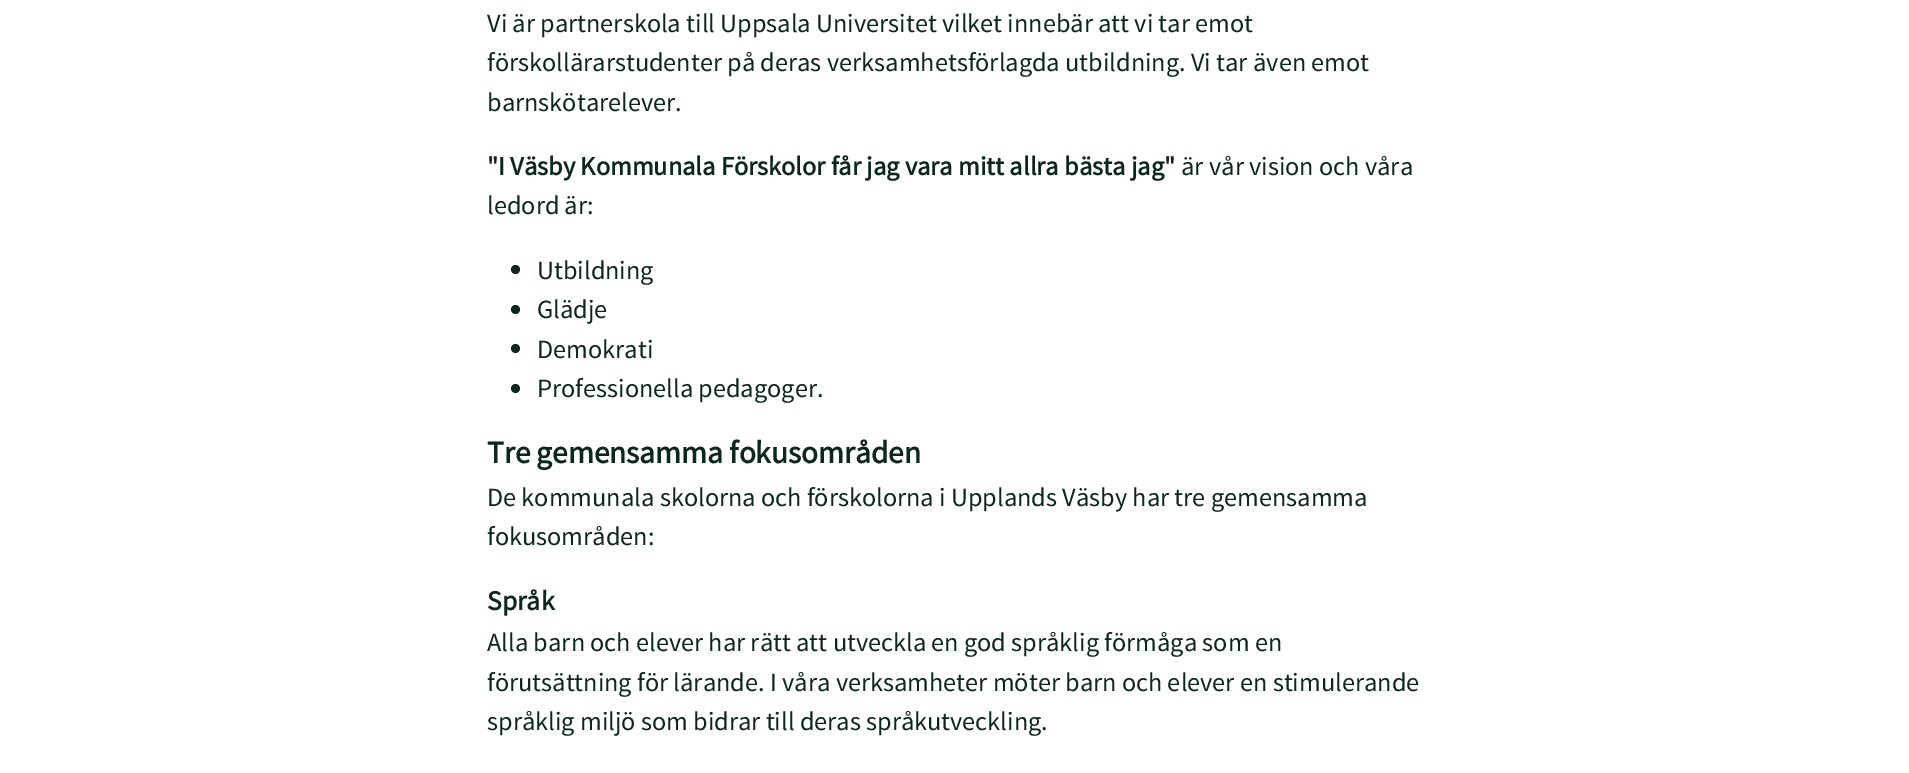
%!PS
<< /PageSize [1909 773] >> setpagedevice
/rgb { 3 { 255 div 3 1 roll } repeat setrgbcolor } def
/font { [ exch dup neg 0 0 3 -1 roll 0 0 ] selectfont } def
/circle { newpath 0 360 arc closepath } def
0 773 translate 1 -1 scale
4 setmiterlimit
255 255 255 rgb
0 0 1909 773 rectfill
12 39 29 rgb
515.5 269.5 4.5 circle fill
515.5 309.5 4.5 circle fill
515.5 348.5 4.5 circle fill
515.5 388.5 4.5 circle fill
/SourceSansPro-Regular 26.25 font
[
  [(Vi är partnerskola till Uppsala Universitet vilket innebär att vi tar emot) 487 32]
  [(förskollärarstudenter på deras verksamhetsförlagda utbildning. Vi tar även emot) 487 71]
  [(barnskötarelever.) 487 111]
] { aload pop moveto show } forall
/SourceSansPro-Bold 26.25 font
487 175 moveto ("I Väsby Kommunala Förskolor får jag vara mitt allra bästa jag") show
/SourceSansPro-Regular 26.25 font
[
  [(är vår vision och våra) 1181 175]
  [(ledord är:) 487 214]
  [(Utbildning) 537 279]
  [(Glädje) 537 318]
  [(Demokrati) 537 358]
  [(Professionella pedagoger.) 537 397]
] { aload pop moveto show } forall
/SourceSansPro-Bold 31.25 font
487 463 moveto (Tre gemensamma fokusområden) show
/SourceSansPro-Regular 26.25 font
487 506 moveto (De kommunala skolorna och förskolorna i Upplands Väsby har tre gemensamma) show
487 545 moveto (fokusområden:) show
/SourceSansPro-Bold 27.5 font
487 610 moveto (Språk) show
/SourceSansPro-Regular 26.25 font
[
  [(Alla barn och elever har rätt att utveckla en god språklig förmåga som en) 487 651]
  [(förutsättning för lärande. I våra verksamheter möter barn och elever en stimulerande) 487 691]
  [(språklig miljö som bidrar till deras språkutveckling.) 487 730]
] { aload pop moveto show } forall
showpage
